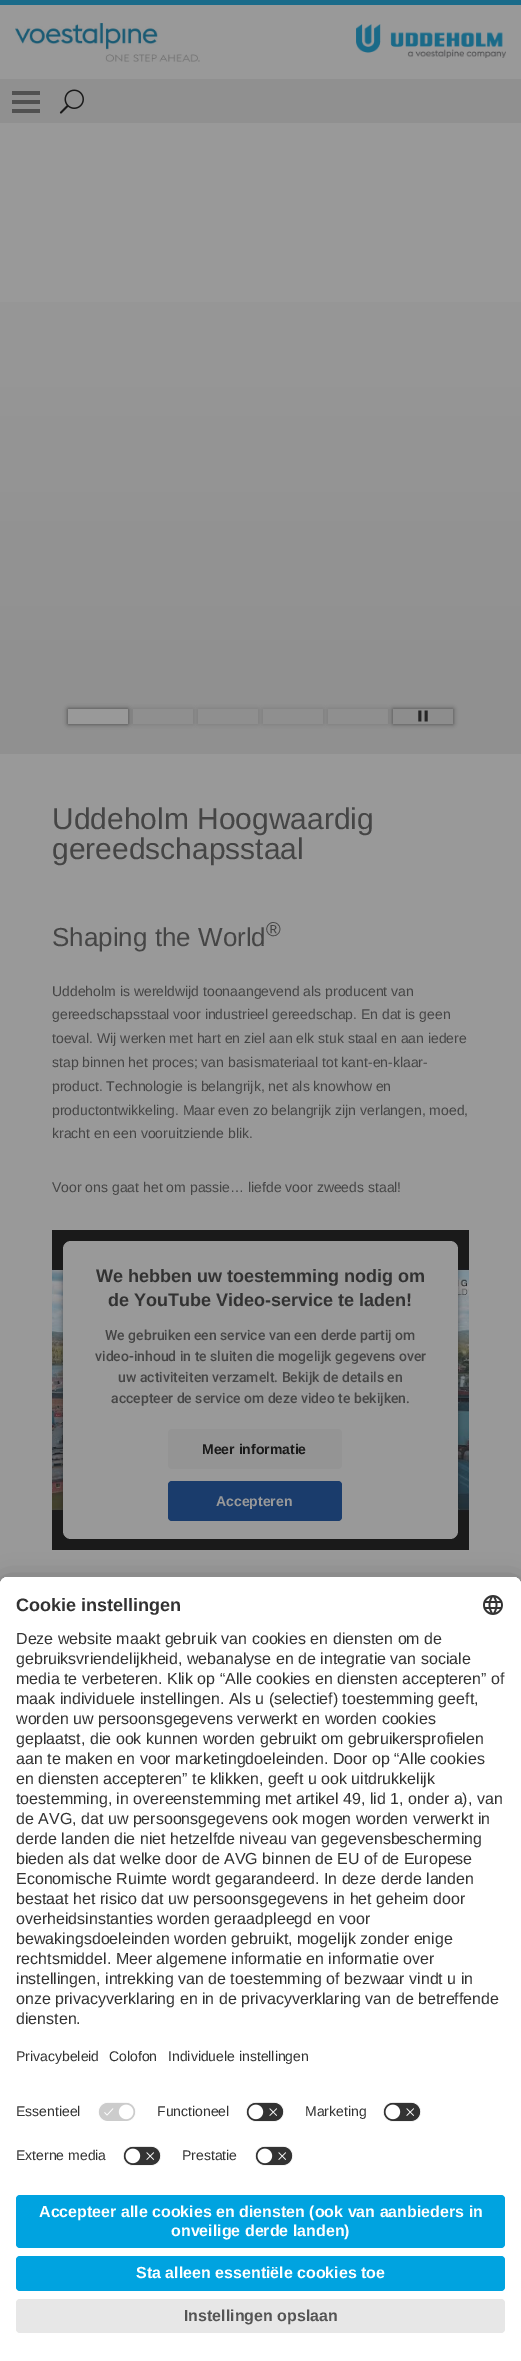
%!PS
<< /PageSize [521 2361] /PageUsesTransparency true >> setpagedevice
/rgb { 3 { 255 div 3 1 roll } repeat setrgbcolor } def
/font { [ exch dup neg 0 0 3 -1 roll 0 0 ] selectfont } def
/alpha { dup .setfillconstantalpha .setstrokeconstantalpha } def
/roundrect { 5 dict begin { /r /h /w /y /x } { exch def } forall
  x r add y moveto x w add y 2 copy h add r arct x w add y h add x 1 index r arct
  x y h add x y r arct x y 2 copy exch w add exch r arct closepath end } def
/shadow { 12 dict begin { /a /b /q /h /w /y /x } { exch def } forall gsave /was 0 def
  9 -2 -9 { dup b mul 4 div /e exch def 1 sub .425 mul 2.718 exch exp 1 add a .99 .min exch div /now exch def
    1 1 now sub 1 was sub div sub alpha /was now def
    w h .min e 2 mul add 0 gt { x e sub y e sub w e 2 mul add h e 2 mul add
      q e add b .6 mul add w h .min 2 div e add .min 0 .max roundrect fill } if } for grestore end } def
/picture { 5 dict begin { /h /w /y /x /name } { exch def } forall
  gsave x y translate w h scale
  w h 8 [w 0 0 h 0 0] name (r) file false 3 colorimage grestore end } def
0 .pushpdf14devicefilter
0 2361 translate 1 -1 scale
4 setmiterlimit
153 153 153 rgb
0 0 521 2361 rectfill
26 107 138 rgb
0 0 521 5 rectfill
(img/1.rgb) 15 23 185 39 picture
(img/2.rgb) 356 24 150 34 picture
[
  [0 79 521 44 144 144 144]
  [12 91 28 4 81 81 81]
  [12 100 28 4 81 81 81]
  [12 109 28 4 81 81 81]
] { aload pop rgb rectfill } forall
(img/3.rgb) 59 89 25 25 picture
(img/4.rgb) 0 302 521 452 picture
69 69 69 rgb
68 709 60 15 0 2.5 1 shadow
153 153 153 rgb
68 709 60 15 rectfill
69 69 69 rgb
133 709 60 15 0 2.5 0.3 shadow
143 143 143 rgb
133 709 60 15 rectfill
69 69 69 rgb
198 709 60 15 0 2.5 0.3 shadow
143 143 143 rgb
198 709 60 15 rectfill
69 69 69 rgb
263 709 60 15 0 2.5 0.3 shadow
143 143 143 rgb
263 709 60 15 rectfill
69 69 69 rgb
328 709 60 15 0 2.5 0.3 shadow
143 143 143 rgb
328 709 60 15 rectfill
69 69 69 rgb
393 709 60 15 0 2.5 0.9 shadow
141 141 141 rgb
393 709 60 15 rectfill
(img/5.rgb) 418 710 10 12 picture
(img/6.rgb) 52 1230 417 320 picture
26 26 26 rgb
63 1244 395 298 8 3 0.5 shadow
153 153 153 rgb
63 1241 395 298 8 roundrect fill
148 148 148 rgb
168 1429 174 40 4 roundrect fill
26 60 108 rgb
168 1481 174 40 4 roundrect fill
0 0 0 rgb
0 1597 521 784 8 14 0.3 shadow
0 1582 521 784 8 13 0.22 shadow
255 255 255 rgb
8 1577 moveto 513 1577 lineto 517.5 1577 521 1580.5 521 1585 curveto 521 2361 lineto 0 2361 lineto 0 1585 lineto 0 1580.5 3.5 1577 8 1577 curveto closepath fill
8 1577 moveto 513 1577 lineto 517.5 1577 521 1580.5 521 1585 curveto 521 2183 lineto 0 2183 lineto 0 1585 lineto 0 1580.5 3.5 1577 8 1577 curveto closepath fill
8 1577 moveto 513 1577 lineto 517.5 1577 521 1580.5 521 1585 curveto 521 2095 lineto 0 2095 lineto 0 1585 lineto 0 1580.5 3.5 1577 8 1577 curveto closepath fill
(img/7.rgb) 483 1595 20 20 picture
(img/8.rgb) 98 2102 38 19 picture
(img/9.rgb) 246 2102 38 20 picture
(img/9.rgb) 383 2102 38 20 picture
(img/9.rgb) 123 2146 38 20 picture
(img/9.rgb) 255 2146 38 20 picture
0 163 224 rgb
16 2195 489 53 4 roundrect fill
16 2256 489 35 4 roundrect fill
231 231 231 rgb
16 2299 489 34 4 roundrect fill
/LiberationSans-Regular 30 font
69 69 69 rgb
52 829 moveto (Uddeholm Hoogwaardig) show
52 859 moveto (gereedschapsstaal) show
/LiberationSans-Regular 26 font
52 946 moveto (Shaping the World) show
/LiberationSans-Regular 20 font
266 936 moveto (®) show
/LiberationSans-Regular 14 font
[
  [(Uddeholm is wereldwijd toonaangevend als producent van) 52 996]
  [(gereedschapsstaal voor industrieel gereedschap. En dat is geen) 52 1019]
  [(toeval. Wij werken met hart en ziel aan elk stuk staal en aan iedere) 52 1043]
  [(stap binnen het proces; van basismateriaal tot kant-en-klaar-) 52 1067]
  [(product. Technologie is belangrijk, net als knowhow en) 52 1091]
  [(productontwikkeling. Maar even zo belangrijk zijn verlangen, moed,) 52 1115]
  [(kracht en een vooruitziende blik.) 52 1138]
  [(Voor ons gaat het om passie… liefde voor zweeds staal!) 52 1192]
] { aload pop moveto show } forall
/LiberationSans-Bold 18 font
50 50 50 rgb
96 1282 moveto (We hebben uw toestemming nodig om) show
108 1306 moveto (de YouTube Video-service te laden!) show
/Roboto-Medium 14 font
69 69 69 rgb
[
  [(We gebruiken een service van een derde partij om) 105 1340]
  [(video-inhoud in te sluiten die mogelijk gegevens over) 95 1361]
  [(uw activiteiten verzamelt. Bekijk de details en) 118 1382]
  [(accepteer de service om deze video te bekijken.) 111 1403]
] { aload pop moveto show } forall
/LiberationSans-Bold 14 font
26 26 26 rgb
202 1454 moveto (Meer informatie) show
153 153 153 rgb
216 1506 moveto (Accepteren) show
/LiberationSans-Bold 18 font
50 50 50 rgb
16 1611 moveto (Cookie instellingen) show
/LiberationSans-Regular 16 font
[
  [(Deze website maakt gebruik van cookies en diensten om de) 16 1644]
  [(gebruiksvriendelijkheid, webanalyse en de integratie van sociale) 16 1664]
  [(media te verbeteren. Klik op “Alle cookies en diensten accepteren” of) 16 1684]
  [(maak individuele instellingen. Als u \(selectief\) toestemming geeft,) 16 1704]
  [(worden uw persoonsgegevens verwerkt en worden cookies) 16 1724]
  [(geplaatst, die ook kunnen worden gebruikt om gebruikersprofielen) 16 1744]
  [(aan te maken en voor marketingdoeleinden. Door op “Alle cookies) 16 1764]
  [(en diensten accepteren” te klikken, geeft u ook uitdrukkelijk) 16 1784]
  [(toestemming, in overeenstemming met artikel 49, lid 1, onder a\), van) 16 1804]
  [(de AVG, dat uw persoonsgegevens ook mogen worden verwerkt in) 16 1824]
  [(derde landen die niet hetzelfde niveau van gegevensbescherming) 16 1844]
  [(bieden als dat welke door de AVG binnen de EU of de Europese) 16 1864]
  [(Economische Ruimte wordt gegarandeerd. In deze derde landen) 16 1884]
  [(bestaat het risico dat uw persoonsgegevens in het geheim door) 16 1904]
  [(overheidsinstanties worden geraadpleegd en voor) 16 1924]
  [(bewakingsdoeleinden worden gebruikt, mogelijk zonder enige) 16 1944]
  [(rechtsmiddel. Meer algemene informatie en informatie over) 16 1964]
  [(instellingen, intrekking van de toestemming of bezwaar vindt u in) 16 1984]
  [(onze privacyverklaring en in de privacyverklaring van de betreffende) 16 2004]
  [(diensten.) 16 2024]
] { aload pop moveto show } forall
/LiberationSans-Regular 14 font
[
  [(Privacybeleid) 16 2061]
  [(Colofon) 109 2061]
  [(Individuele instellingen) 168 2061]
  [(Essentieel) 16 2116]
  [(Functioneel) 157 2116]
  [(Marketing) 305 2116]
  [(Externe media) 16 2160]
  [(Prestatie) 182 2160]
] { aload pop moveto show } forall
/LiberationSans-Bold 16 font
255 255 255 rgb
[
  [(Accepteer alle cookies en diensten \(ook van aanbieders in) 39 2217]
  [(onveilige derde landen\)) 171 2236]
  [(Sta alleen essentiële cookies toe) 136 2278]
] { aload pop moveto show } forall
85 85 85 rgb
184 2321 moveto (Instellingen opslaan) show
.poppdf14devicefilter showpage
